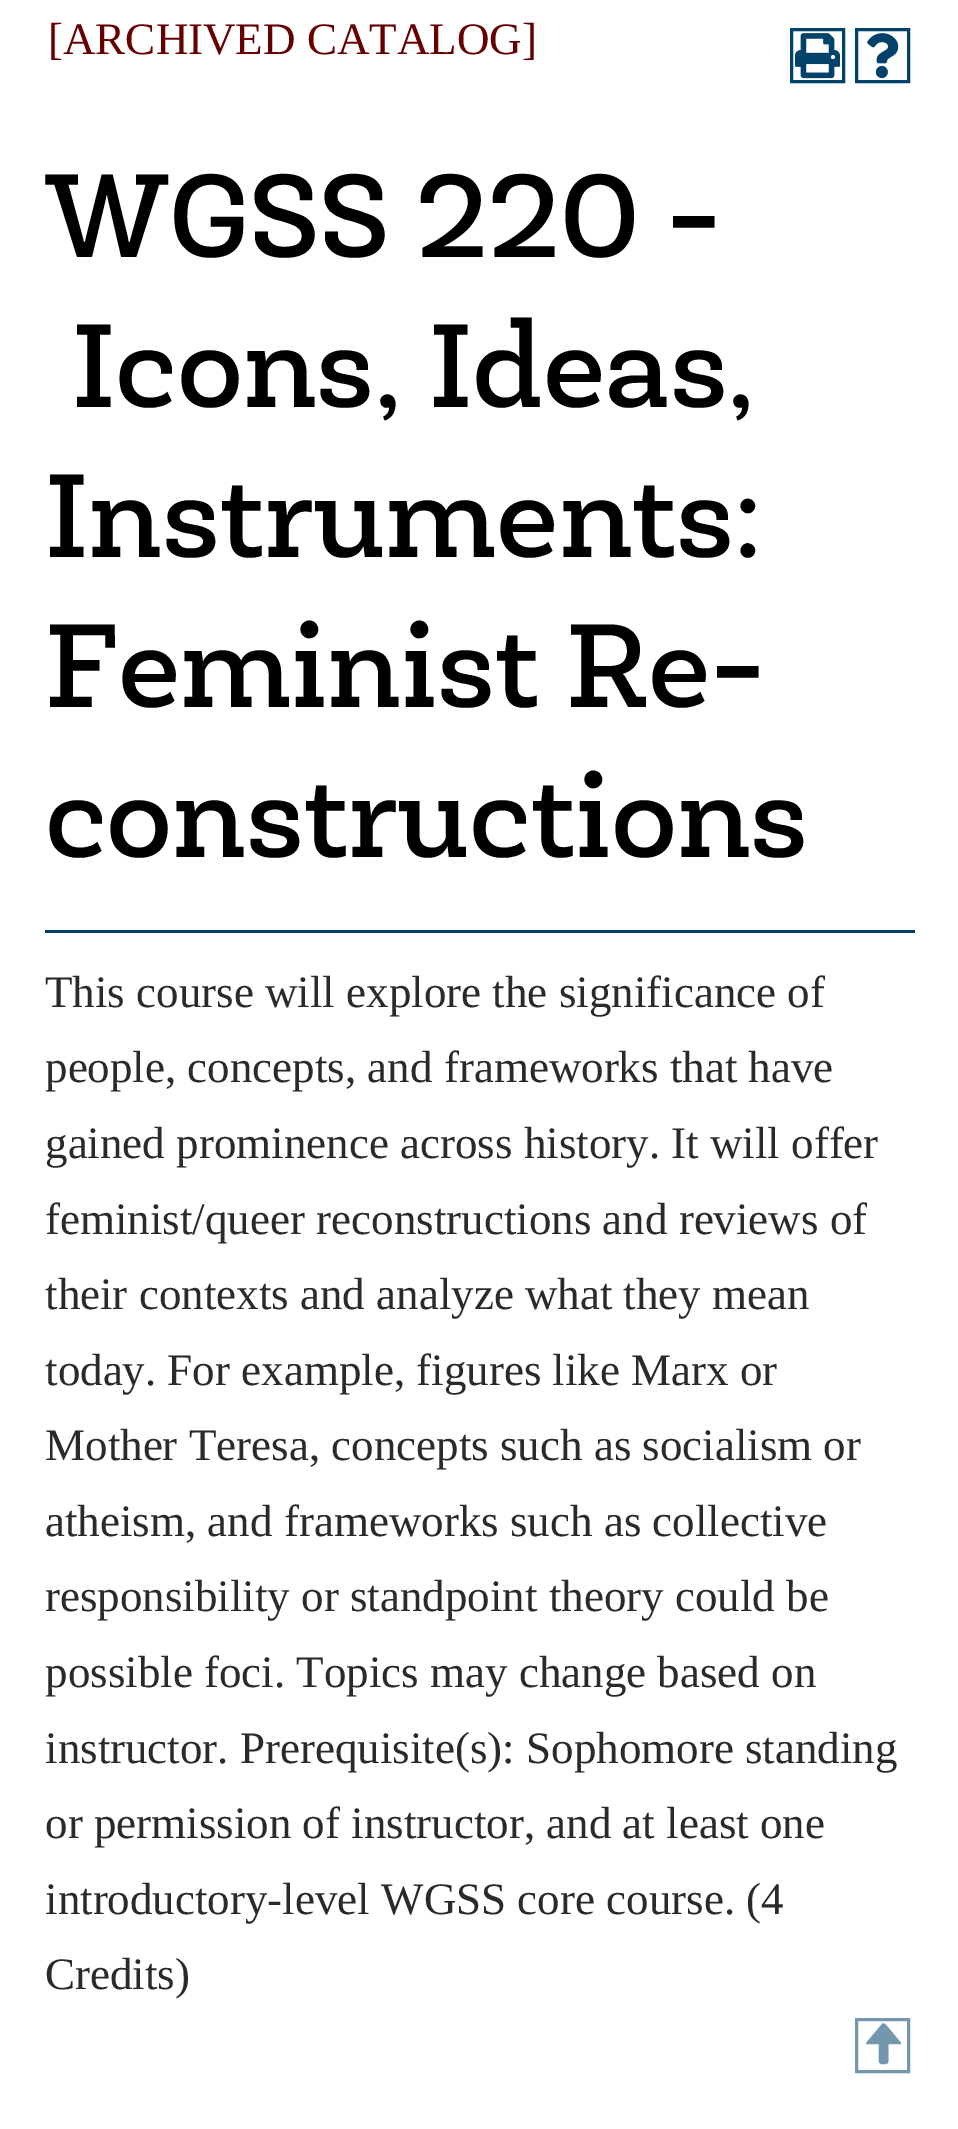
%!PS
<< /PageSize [958 2129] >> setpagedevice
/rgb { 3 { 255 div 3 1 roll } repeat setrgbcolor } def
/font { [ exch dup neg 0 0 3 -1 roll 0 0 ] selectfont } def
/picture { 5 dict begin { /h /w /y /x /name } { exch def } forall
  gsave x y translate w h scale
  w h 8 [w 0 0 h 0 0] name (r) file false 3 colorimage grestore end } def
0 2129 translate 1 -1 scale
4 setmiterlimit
255 255 255 rgb
0 0 958 2129 rectfill
1 66 106 rgb
3 setlinewidth
791.5 29.5 52 52 rectstroke
(img/1.rgb) 795 33 45 46 picture
856.5 29.5 52 52 rectstroke
(img/2.rgb) 867 33 32 46 picture
45 930 870 3 rectfill
115 151 173 rgb
856.5 2019.5 52 52 rectstroke
/LiberationSerif-Regular 45 font
102 0 0 rgb
48 54 moveto ([ARCHIVED CATALOG]) show
/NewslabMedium-Regular 120 font
0 0 0 rgb
[
  [(WGSS 220 -) 45 257]
  [(Icons, Ideas,) 72 407]
  [(Instruments:) 45 557]
  [(Feminist Re-) 45 707]
  [(constructions) 45 857]
] { aload pop moveto show } forall
/LiberationSerif-Regular 45 font
42 42 42 rgb
[
  [(This course will explore the significance of) 45 1007]
  [(people, concepts, and frameworks that have) 45 1082]
  [(gained prominence across history. It will offer) 45 1158]
  [(feminist/queer reconstructions and reviews of) 45 1234]
  [(their contexts and analyze what they mean) 45 1309]
  [(today. For example, figures like Marx or) 45 1385]
  [(Mother Teresa, concepts such as socialism or) 45 1460]
  [(atheism, and frameworks such as collective) 45 1536]
  [(responsibility or standpoint theory could be) 45 1611]
  [(possible foci. Topics may change based on) 45 1687]
  [(instructor. Prerequisite\(s\): Sophomore standing) 45 1763]
  [(or permission of instructor, and at least one) 45 1838]
  [(introductory-level WGSS core course. \(4) 45 1914]
  [(Credits\)) 45 1989]
] { aload pop moveto show } forall
/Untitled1-Medium 45 font
115 151 173 rgb
860 2057 moveto (T) show
showpage
